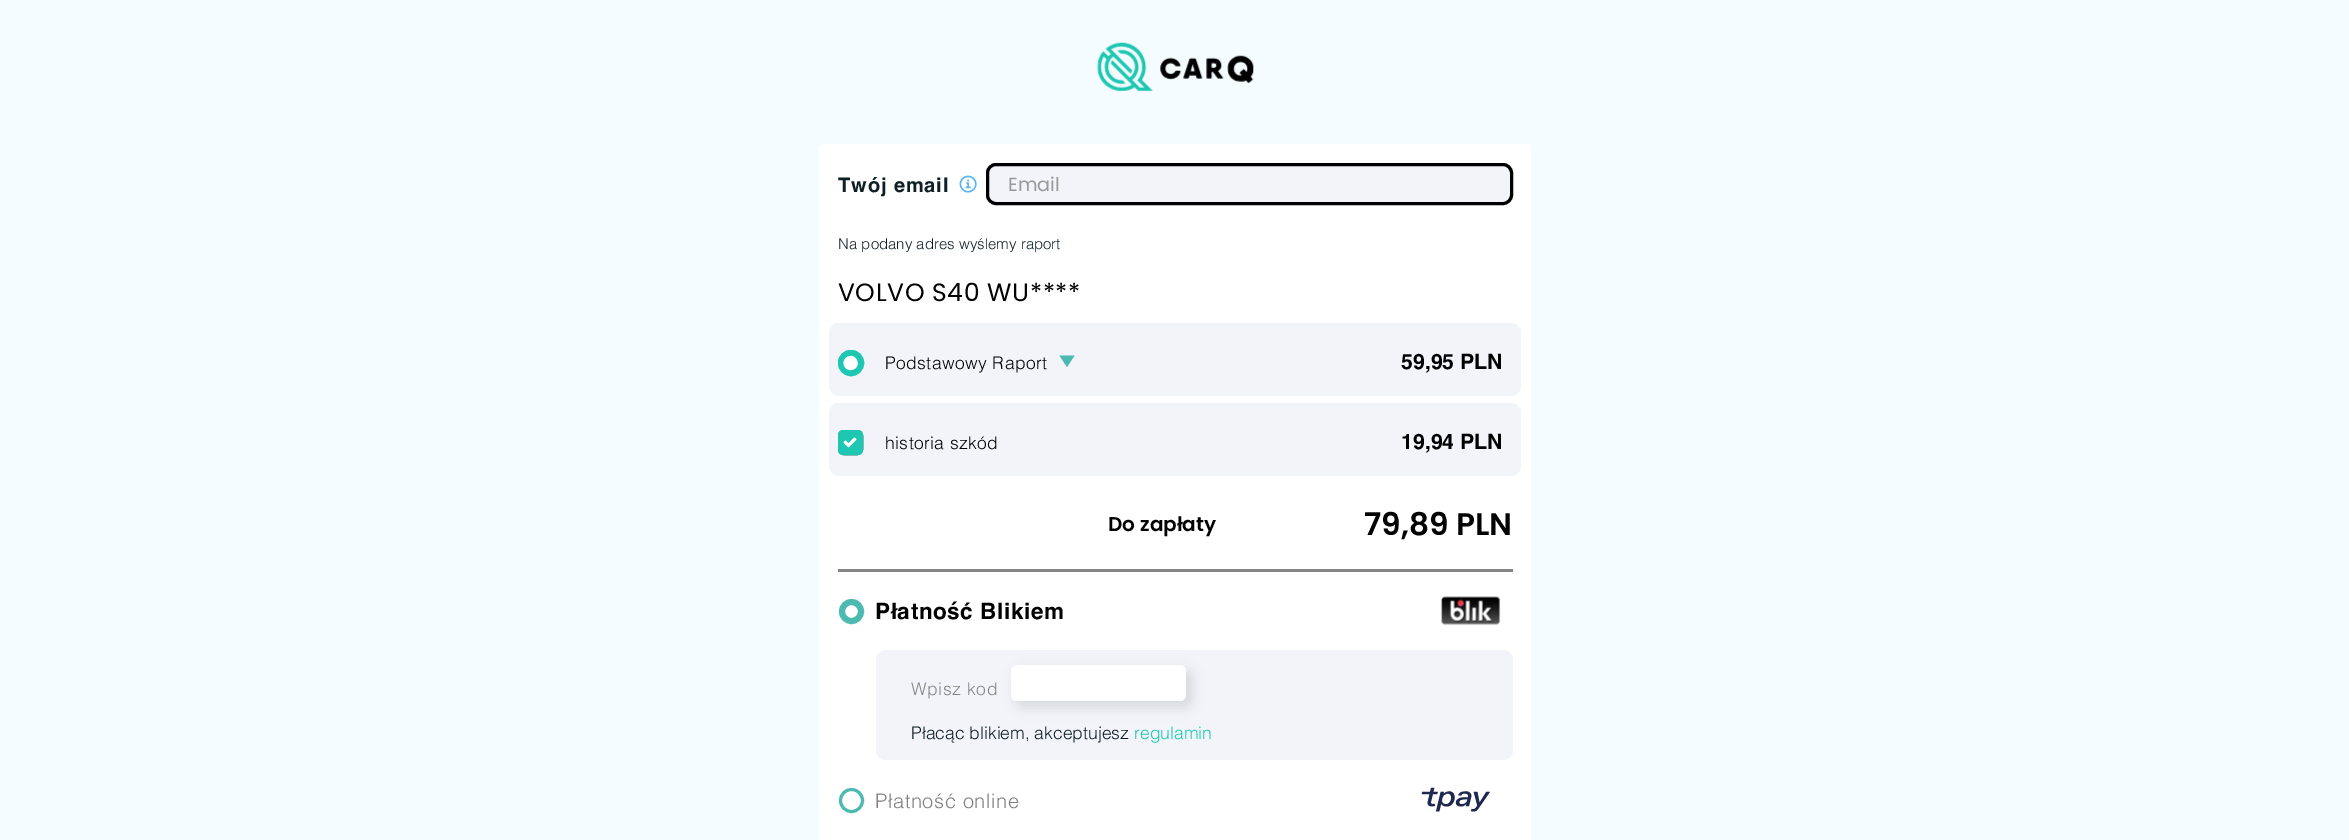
%!PS
<< /PageSize [2349 840] /PageUsesTransparency true >> setpagedevice
/rgb { 3 { 255 div 3 1 roll } repeat setrgbcolor } def
/font { [ exch dup neg 0 0 3 -1 roll 0 0 ] selectfont } def
/alpha { dup .setfillconstantalpha .setstrokeconstantalpha } def
/circle { newpath 0 360 arc closepath } def
/roundrect { 5 dict begin { /r /h /w /y /x } { exch def } forall
  x r add y moveto x w add y 2 copy h add r arct x w add y h add x 1 index r arct
  x y h add x y r arct x y 2 copy exch w add exch r arct closepath end } def
/shadow { 12 dict begin { /a /b /q /h /w /y /x } { exch def } forall gsave /was 0 def
  9 -2 -9 { dup b mul 4 div /e exch def 1 sub .425 mul 2.718 exch exp 1 add a .99 .min exch div /now exch def
    1 1 now sub 1 was sub div sub alpha /was now def
    w h .min e 2 mul add 0 gt { x e sub y e sub w e 2 mul add h e 2 mul add
      q e add b .6 mul add w h .min 2 div e add .min 0 .max roundrect fill } if } for grestore end } def
/picture { 5 dict begin { /h /w /y /x /name } { exch def } forall
  gsave x y translate w h scale
  w h 8 [w 0 0 h 0 0] name (r) file false 3 colorimage grestore end } def
0 .pushpdf14devicefilter
0 840 translate 1 -1 scale
4 setmiterlimit
244 252 255 rgb
0 0 2349 840 rectfill
(img/1.rgb) 1097 42 157 50 picture
255 255 255 rgb
825 144 moveto 1525 144 lineto 1528.5 144 1531 146.5 1531 150 curveto 1531 211 lineto 819 211 lineto 819 150 lineto 819 146.5 821.5 144 825 144 curveto closepath fill
(img/2.rgb) 959 175 18 18 picture
242 244 249 rgb
986 163 527 42 10 roundrect fill
224 226 230 rgb
996 166 moveto 1502 166 lineto 1507 166 1510 170 1510 174 curveto 1510 173 lineto 1510 169 1506 165 1502 165 curveto 997 165 lineto 993 165 989 169 989 173 curveto 989 174 lineto 989 170 992 166 996 166 curveto closepath fill
0 0 0 rgb
3 setlinewidth
987.5 164.5 524 39 8.5 roundrect stroke
255 255 255 rgb
819 211 712 629 rectfill
242 244 249 rgb
829 323 692 73 10 roundrect fill
76 186 176 rgb
851 363 11.5 circle stroke
30 199 177 rgb
851 363 11.5 circle gsave fill grestore
stroke
255 255 255 rgb
856.5 359.5 moveto 861.5 367.5 849.5 374.5 844.5 366.5 curveto 840 358.5 852 351.5 856.5 359.5 curveto closepath fill
76 186 176 rgb
1059.5 355.5 moveto 1074.5 355.5 lineto 1067 367 lineto closepath fill
242 244 249 rgb
829 403 692 73 10 roundrect fill
0 0 0 rgb
839.5 431.5 22 22 4.5 roundrect stroke
30 199 177 rgb
839.5 431.5 22 22 3.5 roundrect gsave fill grestore
stroke
(img/3.rgb) 843 437 14 11 picture
134 133 133 rgb
838 569 675 3 rectfill
76 186 176 rgb
6 setlinewidth
851.5 611.5 9.5 circle stroke
(img/4.rgb) 1440 596 61 30 picture
242 244 249 rgb
876 650 637 110 10 roundrect fill
0 0 0 rgb
1015 669 178 39 8 6 0.1 shadow
255 255 255 rgb
1011 665 175 36 6 roundrect fill
76 186 176 rgb
3 setlinewidth
851.5 800.5 11 circle stroke
(img/5.rgb) 1421 787 70 25 picture
/Helvetica-Bold 20 font
15 31 38 rgb
838 192 moveto 0.9 0 (Twój email) ashow
/Poppins-Regular 19 font
153 153 153 rgb
1008 191 moveto (Email) show
/Helvetica-Light 15 font
15 31 38 rgb
838 249 moveto (Na podany adres wyślemy raport) show
/Poppins-Regular 25 font
2 2 3 rgb
838 301 moveto 0.6 0 (VOLVO S40 WU****) ashow
/Helvetica-Light 17.5 font
885 369 moveto 0.4 0 (Podstawowy Raport) ashow
/Helvetica-Bold 21.25 font
1401 369 moveto (59,95 PLN) show
/Helvetica-Light 17.5 font
885 449 moveto 0.4 0 (historia szkód) ashow
/Helvetica-Bold 21.25 font
1401 449 moveto (19,94 PLN) show
/Poppins-SemiBold 20 font
1108 531 moveto (Do zapłaty) show
/Poppins-SemiBold 31.25 font
1364 535 moveto (79,89 PLN) show
/Helvetica-Bold 22.5 font
875 619 moveto 0.6 0 (Płatność Blikiem) ashow
/Helvetica-Light 17.5 font
134 133 133 rgb
911 695 moveto 0.6 0 (Wpisz kod) ashow
15 31 38 rgb
911 739 moveto (Płacąc blikiem, akceptujesz) show
30 199 177 rgb
1134 739 moveto (regulamin) show
/Helvetica-Light 20 font
128 128 128 rgb
875 808 moveto 0.6 0 (Płatność online) ashow
.poppdf14devicefilter showpage
